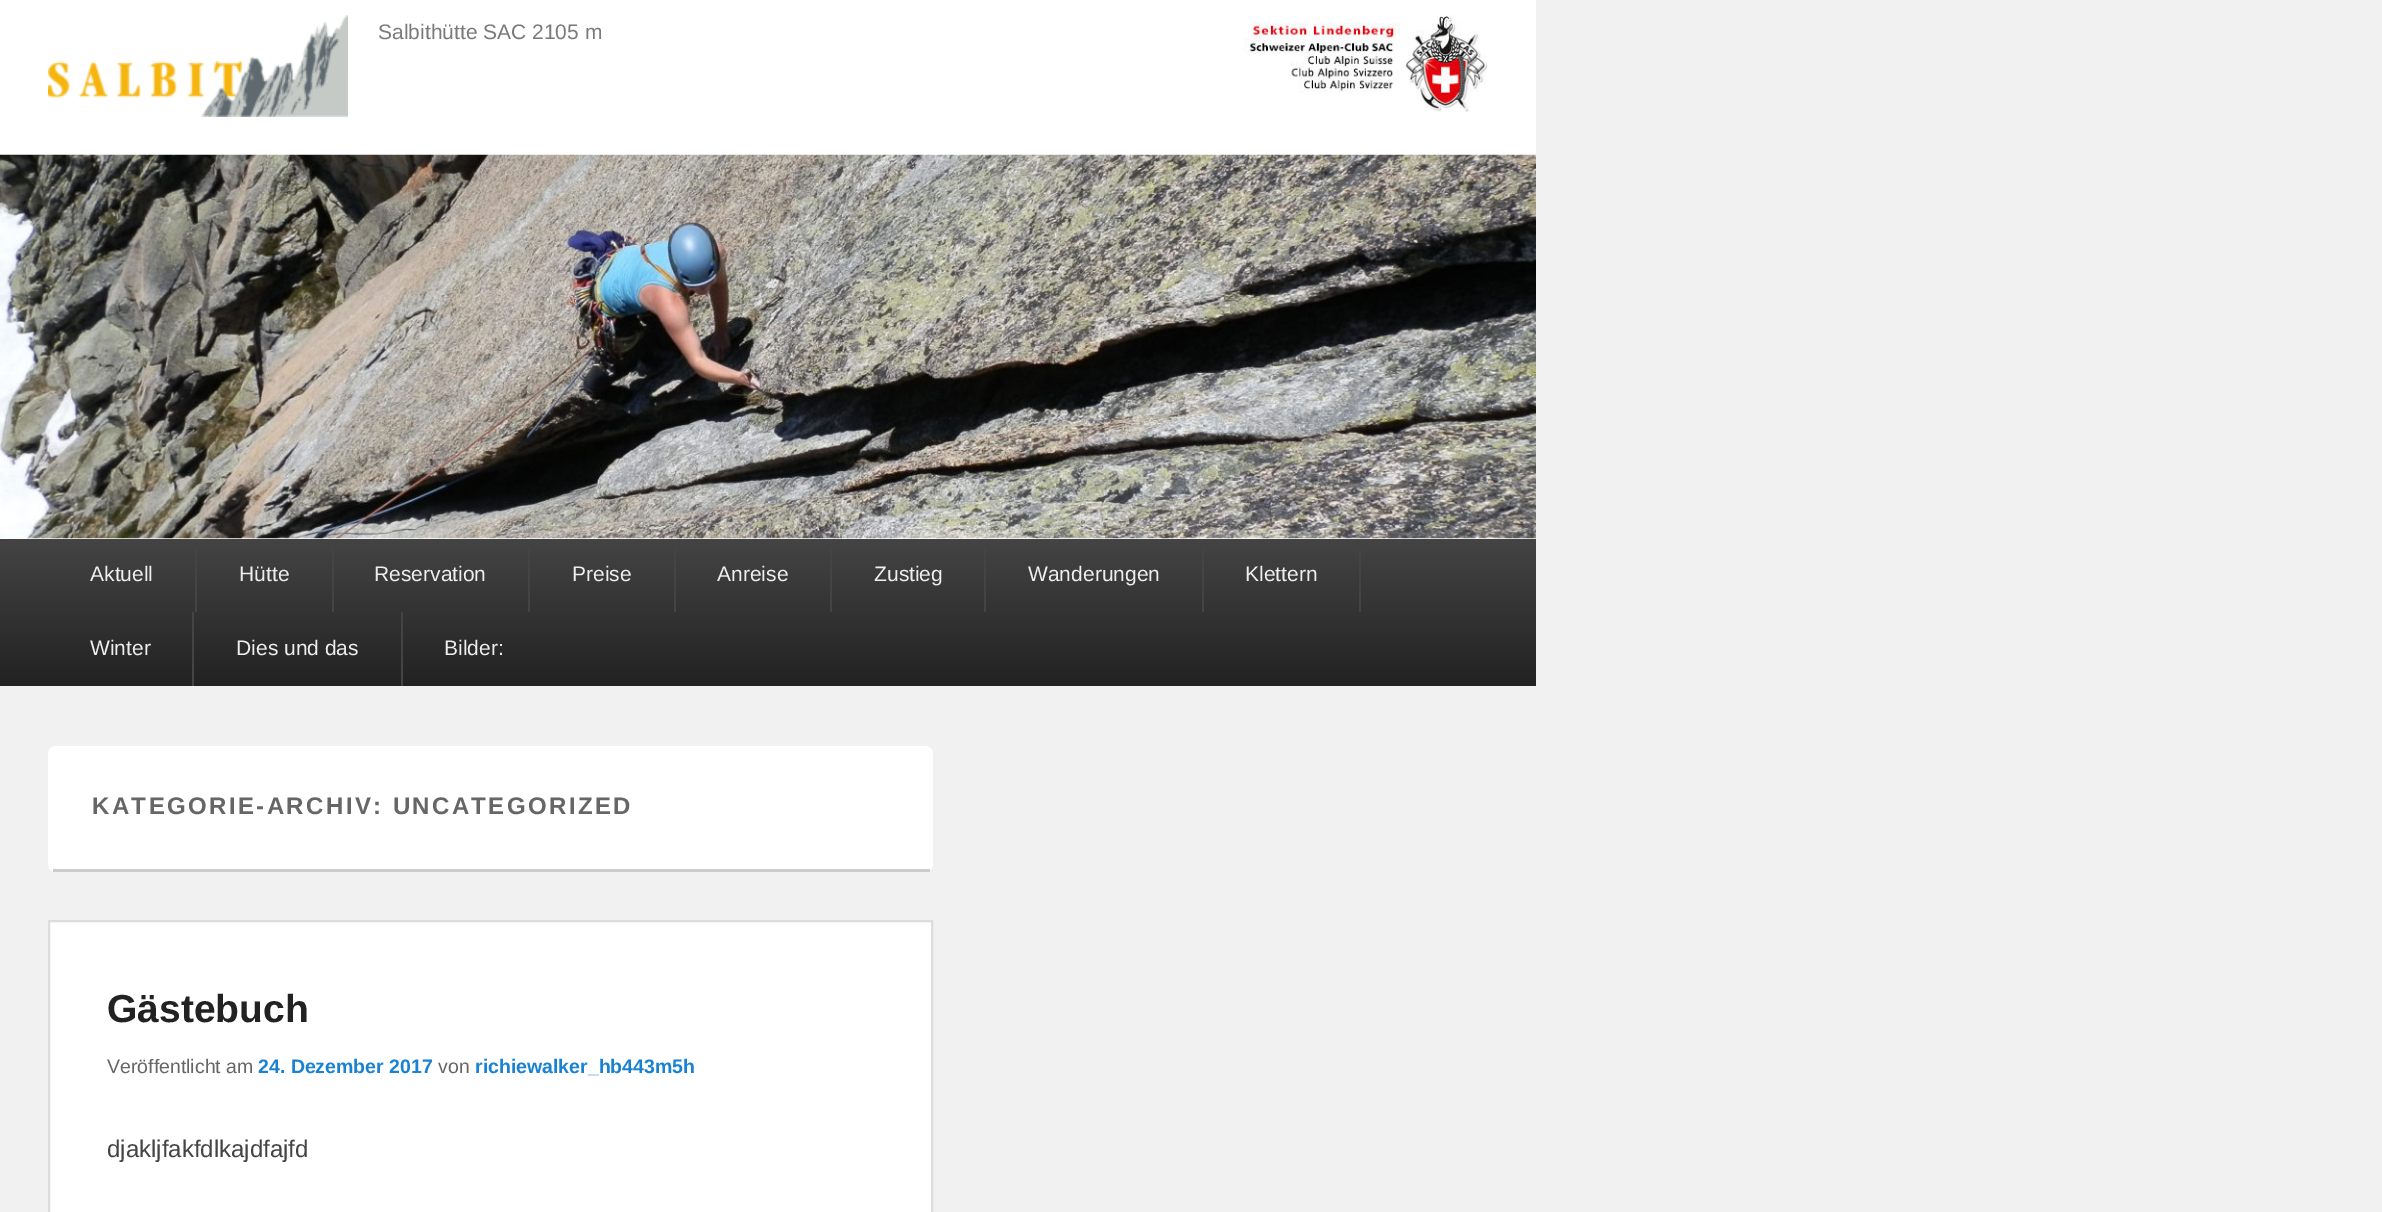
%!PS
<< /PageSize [2382 1212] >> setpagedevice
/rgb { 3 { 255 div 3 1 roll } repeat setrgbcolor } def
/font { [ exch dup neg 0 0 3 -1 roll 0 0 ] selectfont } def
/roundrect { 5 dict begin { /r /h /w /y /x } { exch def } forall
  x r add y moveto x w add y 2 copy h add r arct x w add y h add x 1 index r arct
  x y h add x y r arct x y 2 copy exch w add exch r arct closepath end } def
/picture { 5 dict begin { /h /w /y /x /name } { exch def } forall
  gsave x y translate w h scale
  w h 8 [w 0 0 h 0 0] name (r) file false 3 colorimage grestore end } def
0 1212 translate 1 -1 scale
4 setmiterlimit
241 241 241 rgb
0 0 2382 1212 rectfill
255 255 255 rgb
0 0 1536 155 rectfill
(img/1.rgb) 48 15 300 102 picture
(img/2.rgb) 1243 15 245 97 picture
0 538 1536 1 rectfill
(img/3.rgb) 0 154 1536 385 picture
gsave 0 539 moveto 1536 539 lineto 1536 686 lineto 0 686 lineto closepath clip newpath
<< /ShadingType 2 /ColorSpace /DeviceRGB /Coords [768 538 768 686] /Extend [true true] /Function << /FunctionType 2 /Domain [0 1] /C0 [0.267 0.267 0.267] /C1 [0.133 0.133 0.133] /N 1 >> >> shfill grestore
[
  [195 549 2 63 68 68 68]
  [332 549 2 63 68 68 68]
  [528 549 2 63 68 68 68]
  [674 549 2 63 68 68 68]
  [830 549 2 63 68 68 68]
  [984 549 2 63 68 68 68]
  [1202 549 2 63 68 68 68]
  [1359 549 2 63 68 68 68]
  [192 612 2 74 68 68 68]
  [401 612 2 74 68 68 68]
] { aload pop rgb rectfill } forall
255 255 255 rgb
48 746 885 126 8 roundrect fill
204 204 204 rgb
53 869 877 3 rectfill
255 255 255 rgb
49 921 moveto 932 921 lineto 932 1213 lineto 49 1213 lineto closepath gsave fill grestore
221 221 221 rgb
2 setlinewidth
stroke
/LiberationSans-Regular 21 font
122 122 122 rgb
378 39 moveto (Salbithütte SAC 2105 m) show
238 238 238 rgb
[
  [(Aktuell) 90 581]
  [(Hütte) 239 581]
  [(Reservation) 374 581]
  [(Preise) 572 581]
  [(Anreise) 717 581]
  [(Zustieg) 874 581]
  [(Wanderungen) 1028 581]
  [(Klettern) 1245 581]
  [(Winter) 90 655]
  [(Dies und das) 236 655]
  [(Bilder:) 444 655]
] { aload pop moveto show } forall
/LiberationSans-Bold 24 font
102 102 102 rgb
92 814 moveto 2.4 0 (KATEGORIE-ARCHIV: UNCATEGORIZED) ashow
/LiberationSans-Bold 39 font
34 34 34 rgb
107 1022 moveto (Gästebuch) show
/LiberationSans-Regular 19.5 font
102 102 102 rgb
107 1073 moveto (Veröffentlicht am) show
/LiberationSans-Bold 19.5 font
25 130 209 rgb
258 1073 moveto (24. Dezember 2017) show
/LiberationSans-Regular 19.5 font
102 102 102 rgb
438 1073 moveto (von) show
/LiberationSans-Bold 19.5 font
25 130 209 rgb
475 1073 moveto (richiewalker_hb443m5h) show
/LiberationSans-Regular 24 font
68 68 68 rgb
107 1157 moveto (djakljfakfdlkajdfajfd) show
showpage
